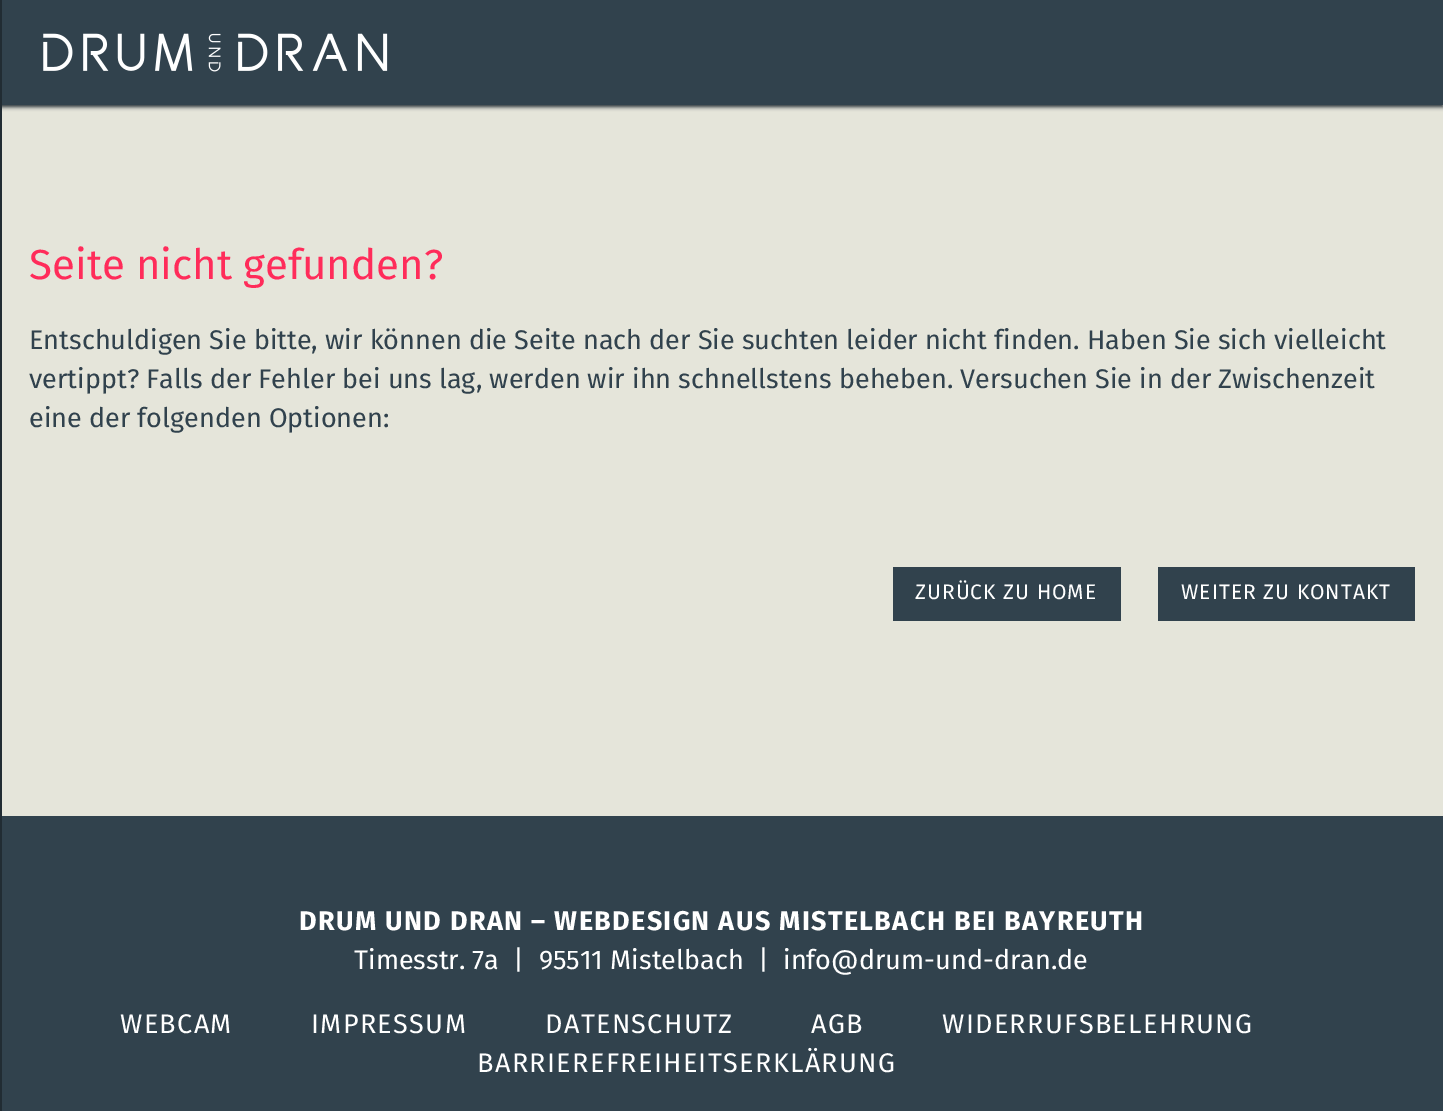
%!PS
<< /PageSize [1443 1111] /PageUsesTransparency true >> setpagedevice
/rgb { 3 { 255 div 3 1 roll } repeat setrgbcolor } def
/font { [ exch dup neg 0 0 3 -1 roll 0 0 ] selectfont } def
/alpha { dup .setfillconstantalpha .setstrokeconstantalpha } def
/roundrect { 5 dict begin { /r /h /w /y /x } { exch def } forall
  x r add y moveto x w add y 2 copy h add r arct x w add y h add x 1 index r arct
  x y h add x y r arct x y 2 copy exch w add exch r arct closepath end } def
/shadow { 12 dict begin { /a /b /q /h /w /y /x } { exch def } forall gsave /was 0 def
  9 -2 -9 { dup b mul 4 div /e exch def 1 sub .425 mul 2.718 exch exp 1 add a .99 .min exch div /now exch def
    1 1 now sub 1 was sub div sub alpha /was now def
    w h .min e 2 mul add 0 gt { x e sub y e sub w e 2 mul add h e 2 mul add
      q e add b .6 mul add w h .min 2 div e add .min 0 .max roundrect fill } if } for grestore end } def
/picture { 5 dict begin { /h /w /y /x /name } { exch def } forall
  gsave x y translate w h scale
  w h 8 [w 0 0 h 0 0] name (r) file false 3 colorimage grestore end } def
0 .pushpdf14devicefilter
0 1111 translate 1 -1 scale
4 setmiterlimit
49 66 77 rgb
0 0 1443 1111 rectfill
229 229 218 rgb
2 105 1441 711 rectfill
33 44 51 rgb
0 2 1443 105 0 2 1 shadow
0 0 2 1111 rectfill
49 66 77 rgb
2 0 1441 105 rectfill
(img/1.rgb) 43 33 345 39 picture
893 567 228 54 rectfill
1158 567 257 54 rectfill
/FiraSans-Regular 42 font
255 44 90 rgb
29 279 moveto (Seite nicht gefunden?) show
/FiraSans-Regular 27 font
49 66 77 rgb
[
  [(Entschuldigen Sie bitte, wir können die Seite nach der Sie suchten leider nicht finden. Haben Sie sich vielleicht) 29 349]
  [(vertippt? Falls der Fehler bei uns lag, werden wir ihn schnellstens beheben. Versuchen Sie in der Zwischenzeit) 29 388]
  [(eine der folgenden Optionen:) 29 427]
] { aload pop moveto show } forall
/FiraSans-Regular 21 font
255 255 255 rgb
915 599 moveto 1 0 (ZURÜCK ZU HOME) ashow
1181 599 moveto 1 0 (WEITER ZU KONTAKT) ashow
/FiraSans-Bold 27 font
299 930 moveto 1.35 0 (DRUM UND DRAN – WEBDESIGN AUS MISTELBACH BEI BAYREUTH) ashow
/FiraSans-Regular 27 font
354 969 moveto (Timesstr. 7a  |  95511 Mistelbach  |) show
783 969 moveto (info@drum-und-dran.de) show
120 1033 moveto 1.35 0 (WEBCAM) ashow
311 1033 moveto 1.35 0 (IMPRESSUM) ashow
545 1033 moveto 1.35 0 (DATENSCHUTZ) ashow
811 1033 moveto 1.35 0 (AGB) ashow
942 1033 moveto 1.35 0 (WIDERRUFSBELEHRUNG) ashow
477 1072 moveto 1.35 0 (BARRIEREFREIHEITSERKLÄRUNG) ashow
.poppdf14devicefilter showpage
